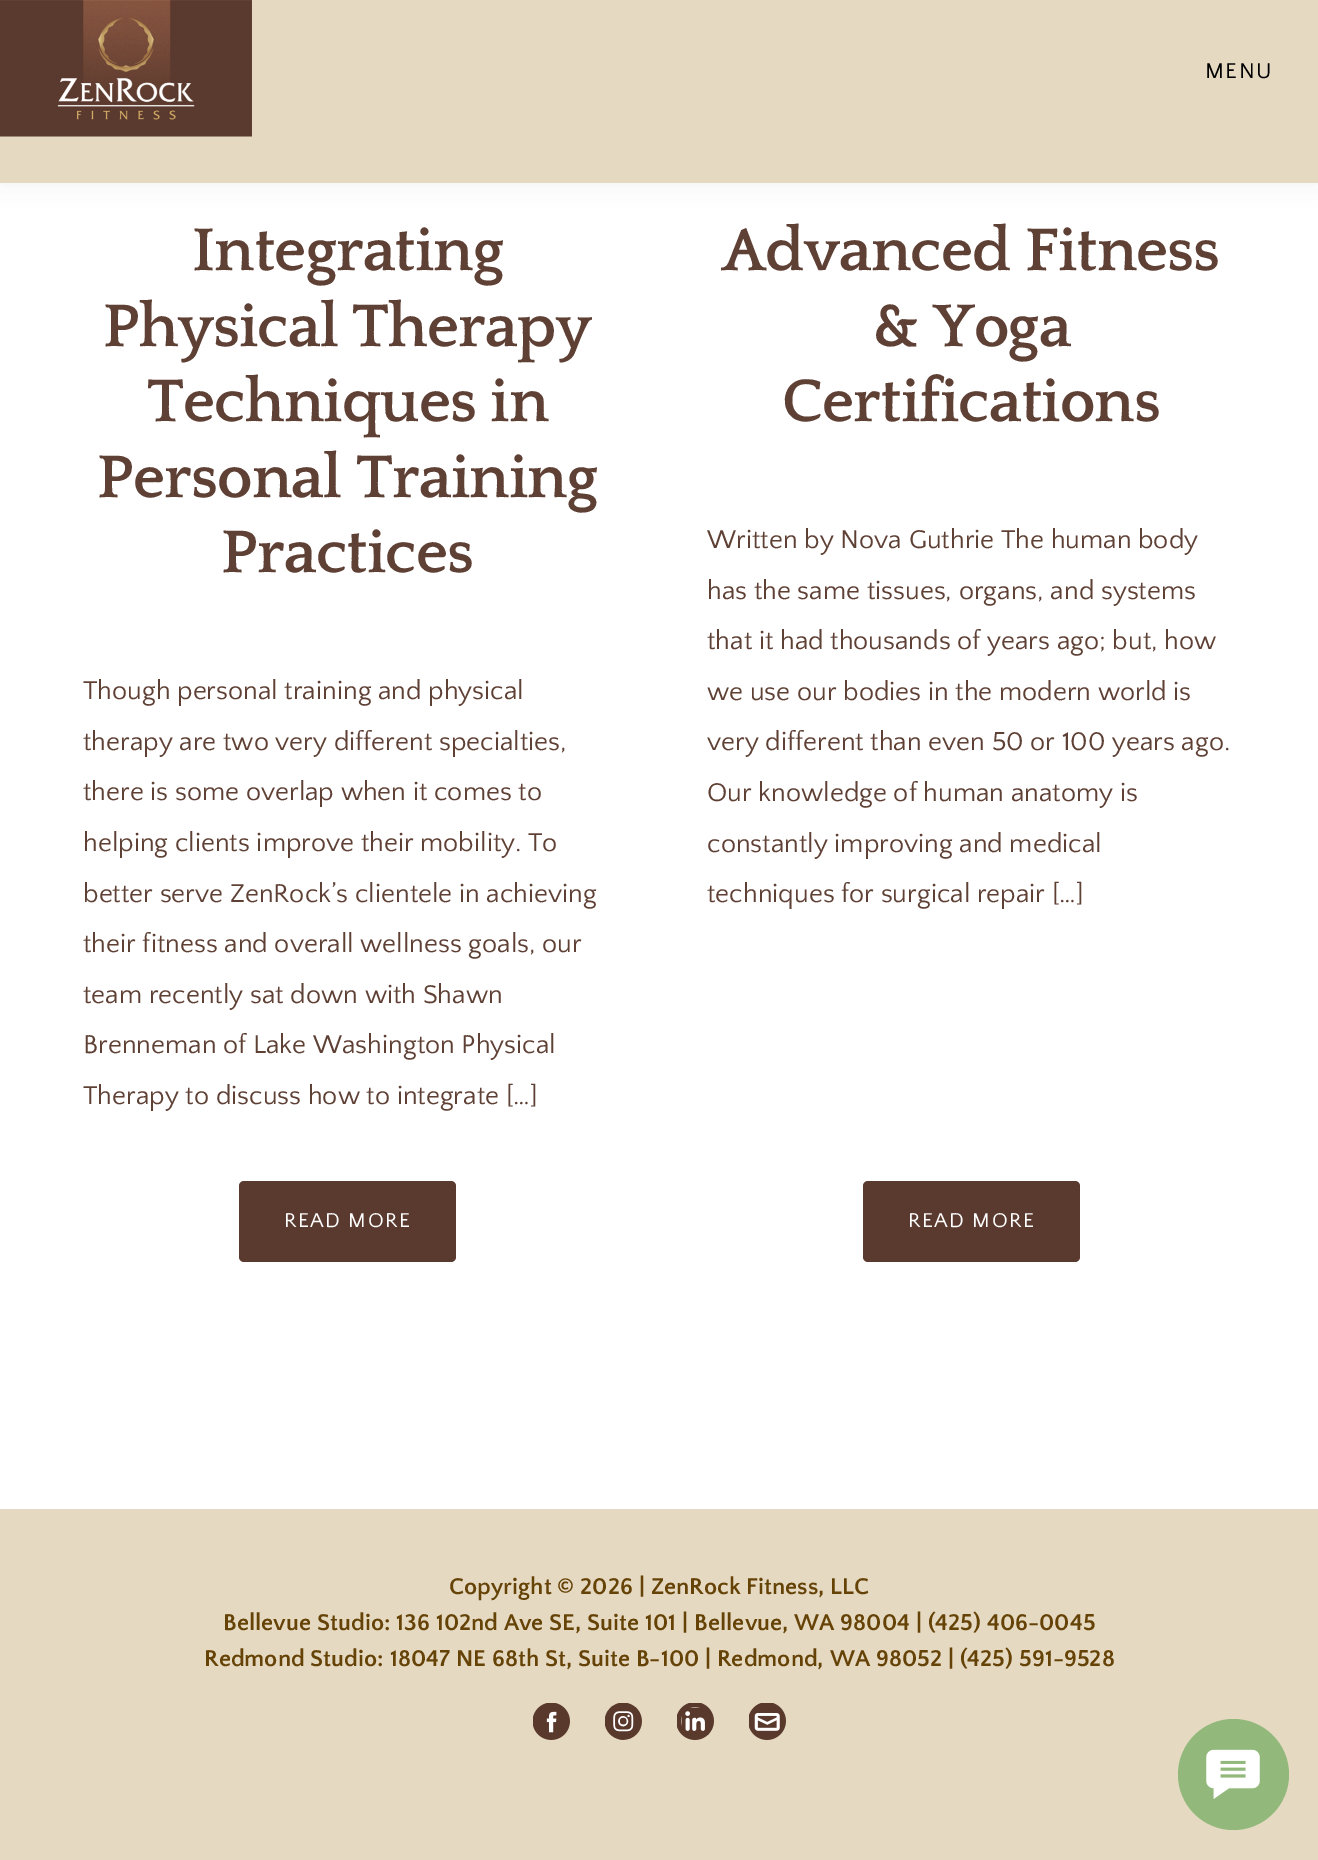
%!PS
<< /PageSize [1318 1860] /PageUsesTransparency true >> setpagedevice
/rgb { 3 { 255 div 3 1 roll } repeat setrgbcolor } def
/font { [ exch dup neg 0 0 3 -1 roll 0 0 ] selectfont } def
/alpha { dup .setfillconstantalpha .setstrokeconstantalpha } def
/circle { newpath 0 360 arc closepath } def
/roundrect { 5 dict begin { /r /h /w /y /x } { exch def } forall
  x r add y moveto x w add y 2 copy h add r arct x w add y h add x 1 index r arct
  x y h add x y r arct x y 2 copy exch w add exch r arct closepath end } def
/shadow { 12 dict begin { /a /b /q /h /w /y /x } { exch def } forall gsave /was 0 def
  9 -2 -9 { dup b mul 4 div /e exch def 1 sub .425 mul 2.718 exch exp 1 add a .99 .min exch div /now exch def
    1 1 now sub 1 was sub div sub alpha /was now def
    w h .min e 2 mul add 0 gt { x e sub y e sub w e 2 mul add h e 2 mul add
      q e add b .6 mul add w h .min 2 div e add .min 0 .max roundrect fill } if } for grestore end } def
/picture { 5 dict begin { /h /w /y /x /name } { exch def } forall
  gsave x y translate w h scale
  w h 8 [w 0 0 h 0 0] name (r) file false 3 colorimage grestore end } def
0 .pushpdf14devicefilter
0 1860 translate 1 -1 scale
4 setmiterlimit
255 255 255 rgb
0 0 1318 1860 rectfill
0 0 0 rgb
0 0 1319 183 0 15 0.05 shadow
229 217 194 rgb
0 0 1318 183 rectfill
(img/1.rgb) 0 0 252 137 picture
90 58 47 rgb
239 1181 217 81 5 roundrect fill
863 1181 217 81 5 roundrect fill
229 217 194 rgb
0 1509 1318 351 rectfill
(img/2.rgb) 533 1703 37 37 picture
(img/3.rgb) 605 1703 37 37 picture
(img/4.rgb) 677 1703 37 37 picture
(img/5.rgb) 749 1703 37 37 picture
146 185 123 rgb
1233.5 1774.5 55.5 circle fill
(img/6.rgb) 1206 1749 54 50 picture
/QuattrocentoSans-Regular 22.5 font
0 0 0 rgb
1205 78 moveto 1.5 0 (MENU) ashow
/Quattrocento-Bold 63 font
95 64 53 rgb
192 270 moveto -0.75 0 (Integrating) ashow
103 346 moveto -0.75 0 (Physical Therapy) ashow
147 421 moveto -0.75 0 (Techniques in) ashow
97 497 moveto -0.75 0 (Personal Training) ashow
221 572 moveto -0.75 0 (Practices) ashow
/QuattrocentoSans-Regular 27 font
[
  [(Though personal training and physical) 83 699]
  [(therapy are two very different specialties,) 83 750]
  [(there is some overlap when it comes to) 83 800]
  [(helping clients improve their mobility. To) 83 851]
  [(better serve ZenRock’s clientele in achieving) 83 902]
  [(their fitness and overall wellness goals, our) 83 952]
  [(team recently sat down with Shawn) 83 1003]
  [(Brenneman of Lake Washington Physical) 83 1053]
  [(Therapy to discuss how to integrate […]) 83 1104]
] { aload pop moveto show } forall
/QuattrocentoSans-Regular 21 font
255 255 255 rgb
284 1227 moveto 1.5 0 (READ MORE) ashow
/Quattrocento-Bold 63 font
95 64 53 rgb
722 270 moveto -0.75 0 (Advanced Fitness) ashow
873 346 moveto -0.75 0 (& Yoga) ashow
782 421 moveto -0.75 0 (Certifications) ashow
/QuattrocentoSans-Regular 27 font
[
  [(Written by Nova Guthrie The human body) 707 548]
  [(has the same tissues, organs, and systems) 707 599]
  [(that it had thousands of years ago; but, how) 707 649]
  [(we use our bodies in the modern world is) 707 700]
  [(very different than even 50 or 100 years ago.) 707 750]
  [(Our knowledge of human anatomy is) 707 801]
  [(constantly improving and medical) 707 852]
  [(techniques for surgical repair […]) 707 902]
] { aload pop moveto show } forall
/QuattrocentoSans-Regular 21 font
255 255 255 rgb
908 1227 moveto 1.5 0 (READ MORE) ashow
/QuattrocentoSans-Bold 24 font
101 66 6 rgb
[
  [(Copyright © 2026 | ZenRock Fitness, LLC) 449 1594]
  [(Bellevue Studio: 136 102nd Ave SE, Suite 101 | Bellevue, WA 98004 | \(425\) 406-0045) 223 1630]
  [(Redmond Studio: 18047 NE 68th St, Suite B-100 | Redmond, WA 98052 | \(425\) 591-9528) 204 1666]
] { aload pop moveto show } forall
.poppdf14devicefilter showpage
